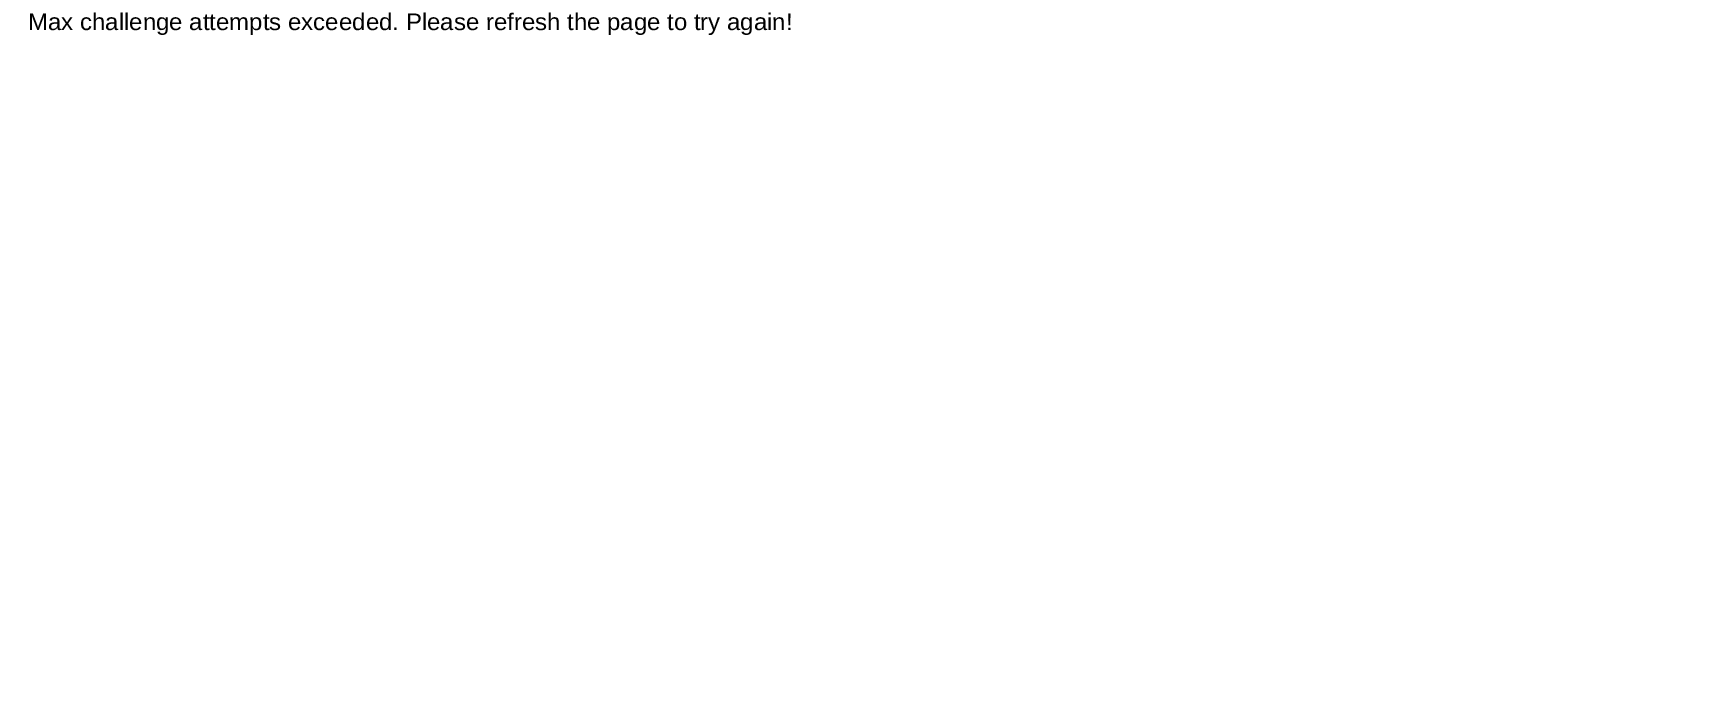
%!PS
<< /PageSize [1717 728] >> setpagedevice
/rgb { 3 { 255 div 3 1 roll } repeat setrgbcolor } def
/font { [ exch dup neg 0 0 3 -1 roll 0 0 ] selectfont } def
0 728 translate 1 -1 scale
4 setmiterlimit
255 255 255 rgb
0 0 1717 728 rectfill
/LiberationSans-Regular 24 font
0 0 0 rgb
28 30 moveto (Max challenge attempts exceeded. Please refresh the page to try again!) show
showpage
